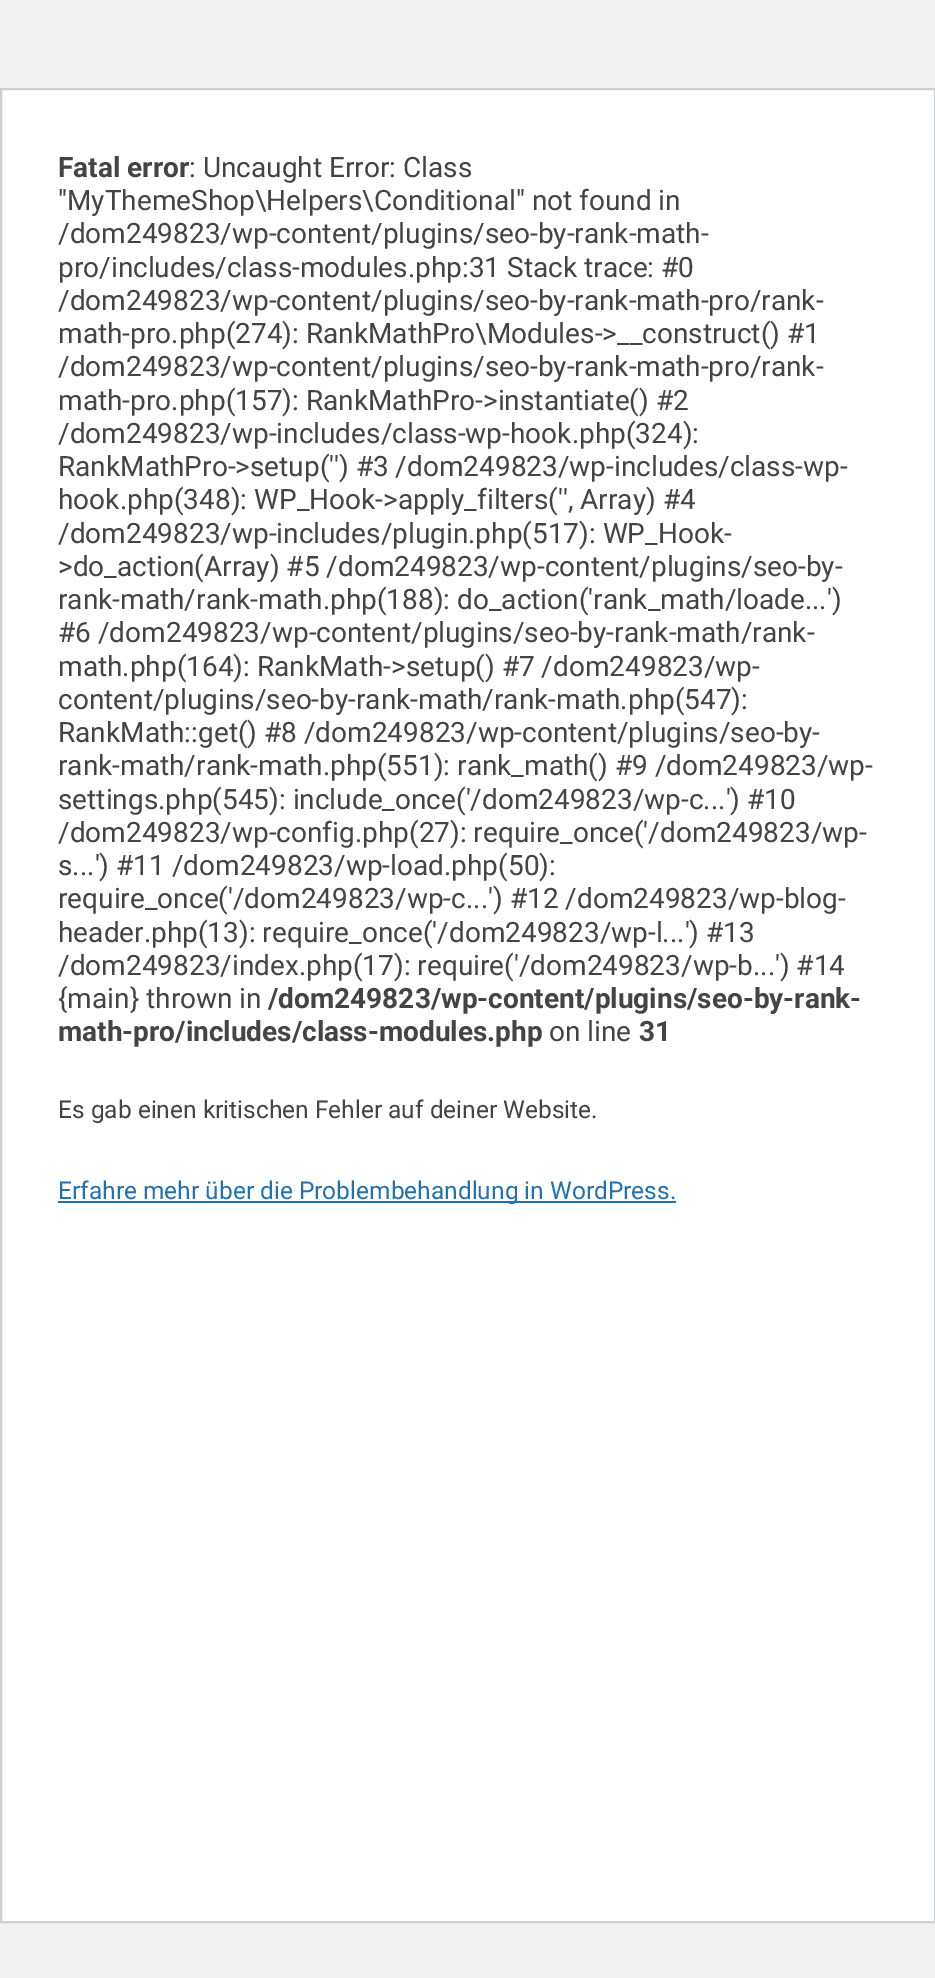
%!PS
<< /PageSize [935 1978] >> setpagedevice
/rgb { 3 { 255 div 3 1 roll } repeat setrgbcolor } def
/font { [ exch dup neg 0 0 3 -1 roll 0 0 ] selectfont } def
0 1978 translate 1 -1 scale
4 setmiterlimit
241 241 241 rgb
0 0 935 1978 rectfill
255 255 255 rgb
1 89 moveto 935 89 lineto 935 1922 lineto 1 1922 lineto closepath gsave fill grestore
204 208 212 rgb
2 setlinewidth
stroke
34 113 177 rgb
58 1201 618 2 rectfill
/Roboto-Bold 28 font
68 68 68 rgb
58 177 moveto (Fatal error) show
/Roboto-Regular 28 font
[
  [(: Uncaught Error: Class) 189 177]
  [("MyThemeShop\\Helpers\\Conditional" not found in) 58 210]
  [(/dom249823/wp-content/plugins/seo-by-rank-math-) 58 243]
  [(pro/includes/class-modules.php:31 Stack trace: #0) 58 277]
  [(/dom249823/wp-content/plugins/seo-by-rank-math-pro/rank-) 58 310]
  [(math-pro.php\(274\): RankMathPro\\Modules->__construct\(\) #1) 58 343]
  [(/dom249823/wp-content/plugins/seo-by-rank-math-pro/rank-) 58 376]
  [(math-pro.php\(157\): RankMathPro->instantiate\(\) #2) 58 410]
  [(/dom249823/wp-includes/class-wp-hook.php\(324\):) 58 443]
  [(RankMathPro->setup\(''\) #3 /dom249823/wp-includes/class-wp-) 58 476]
  [(hook.php\(348\): WP_Hook->apply_filters\('', Array\) #4) 58 509]
  [(/dom249823/wp-includes/plugin.php\(517\): WP_Hook-) 58 543]
  [(>do_action\(Array\) #5 /dom249823/wp-content/plugins/seo-by-) 58 576]
  [(rank-math/rank-math.php\(188\): do_action\('rank_math/loade...'\)) 58 609]
  [(#6 /dom249823/wp-content/plugins/seo-by-rank-math/rank-) 58 642]
  [(math.php\(164\): RankMath->setup\(\) #7 /dom249823/wp-) 58 676]
  [(content/plugins/seo-by-rank-math/rank-math.php\(547\):) 58 709]
  [(RankMath::get\(\) #8 /dom249823/wp-content/plugins/seo-by-) 58 742]
  [(rank-math/rank-math.php\(551\): rank_math\(\) #9 /dom249823/wp-) 58 775]
  [(settings.php\(545\): include_once\('/dom249823/wp-c...'\) #10) 58 809]
  [(/dom249823/wp-config.php\(27\): require_once\('/dom249823/wp-) 58 842]
  [(s...'\) #11 /dom249823/wp-load.php\(50\):) 58 875]
  [(require_once\('/dom249823/wp-c...'\) #12 /dom249823/wp-blog-) 58 908]
  [(header.php\(13\): require_once\('/dom249823/wp-l...'\) #13) 58 942]
  [(/dom249823/index.php\(17\): require\('/dom249823/wp-b...'\) #14) 58 975]
  [({main} thrown in) 58 1008]
] { aload pop moveto show } forall
/Roboto-Bold 28 font
268 1008 moveto (/dom249823/wp-content/plugins/seo-by-rank-) show
58 1041 moveto (math-pro/includes/class-modules.php) show
/Roboto-Regular 28 font
549 1041 moveto (on line) show
/Roboto-Bold 28 font
639 1041 moveto (31) show
/Roboto-Regular 24.5 font
58 1118 moveto (Es gab einen kritischen Fehler auf deiner Website.) show
34 113 177 rgb
58 1199 moveto (Erfahre mehr über die Problembehandlung in WordPress.) show
showpage
